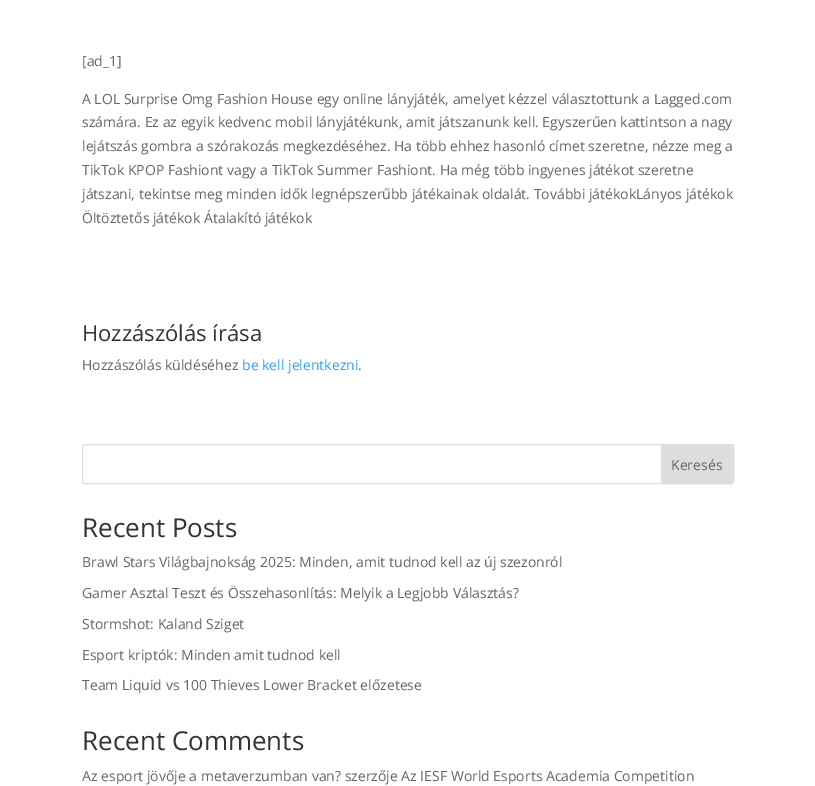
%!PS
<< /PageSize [815 786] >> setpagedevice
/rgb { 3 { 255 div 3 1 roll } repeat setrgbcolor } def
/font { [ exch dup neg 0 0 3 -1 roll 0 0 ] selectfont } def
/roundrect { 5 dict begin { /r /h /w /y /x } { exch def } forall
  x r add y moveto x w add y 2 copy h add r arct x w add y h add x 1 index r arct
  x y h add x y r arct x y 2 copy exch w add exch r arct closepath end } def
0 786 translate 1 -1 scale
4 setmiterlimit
255 255 255 rgb
0 0 815 786 rectfill
221 221 221 rgb
82.5 444.5 651 39 2.5 roundrect stroke
661.5 444.5 moveto 731 444.5 lineto 732.5 444.5 733.5 445.5 733.5 447 curveto 733.5 481 lineto 733.5 482.5 732.5 483.5 731 483.5 curveto 661.5 483.5 lineto closepath gsave fill grestore
stroke
/OpenSans-Regular 14 font
102 102 102 rgb
[
  [([ad_1]) 82 66]
  [(A LOL Surprise Omg Fashion House egy online lányjáték, amelyet kézzel választottunk a Lagged.com) 82 104]
  [(számára. Ez az egyik kedvenc mobil lányjátékunk, amit játszanunk kell. Egyszerűen kattintson a nagy) 82 127]
  [(lejátszás gombra a szórakozás megkezdéséhez. Ha több ehhez hasonló címet szeretne, nézze meg a) 82 151]
  [(TikTok KPOP Fashiont vagy a TikTok Summer Fashiont. Ha még több ingyenes játékot szeretne) 82 175]
  [(játszani, tekintse meg minden idők legnépszerűbb játékainak oldalát. További játékokLányos játékok) 82 199]
  [(Öltöztetős játékok Átalakító játékok) 82 223]
] { aload pop moveto show } forall
/OpenSans-Regular 22 font
51 51 51 rgb
82 341 moveto (Hozzászólás írása) show
/OpenSans-Regular 14 font
102 102 102 rgb
82 370 moveto (Hozzászólás küldéséhez) show
46 163 242 rgb
242 370 moveto (be kell jelentkezni) show
102 102 102 rgb
358 370 moveto (.) show
671 470 moveto (Keresés) show
/OpenSans-Regular 26 font
51 51 51 rgb
82 537 moveto (Recent Posts) show
/OpenSans-Regular 14 font
102 102 102 rgb
[
  [(Brawl Stars Világbajnokság 2025: Minden, amit tudnod kell az új szezonról) 82 567]
  [(Gamer Asztal Teszt és Összehasonlítás: Melyik a Legjobb Választás?) 82 598]
  [(Stormshot: Kaland Sziget) 82 629]
  [(Esport kriptók: Minden amit tudnod kell) 82 660]
  [(Team Liquid vs 100 Thieves Lower Bracket előzetese) 82 690]
] { aload pop moveto show } forall
/OpenSans-Regular 26 font
51 51 51 rgb
82 750 moveto (Recent Comments) show
/OpenSans-Regular 14 font
102 102 102 rgb
82 781 moveto (Az esport jövője a metaverzumban van? szerzője Az IESF World Esports Academia Competition) show
showpage
